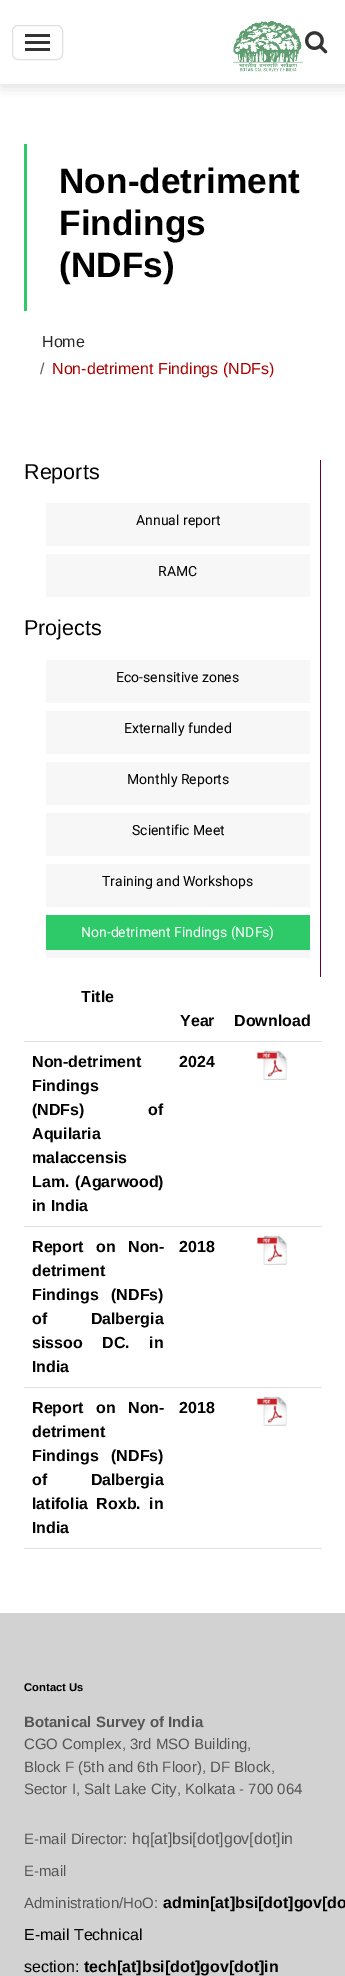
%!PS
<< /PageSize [345 1976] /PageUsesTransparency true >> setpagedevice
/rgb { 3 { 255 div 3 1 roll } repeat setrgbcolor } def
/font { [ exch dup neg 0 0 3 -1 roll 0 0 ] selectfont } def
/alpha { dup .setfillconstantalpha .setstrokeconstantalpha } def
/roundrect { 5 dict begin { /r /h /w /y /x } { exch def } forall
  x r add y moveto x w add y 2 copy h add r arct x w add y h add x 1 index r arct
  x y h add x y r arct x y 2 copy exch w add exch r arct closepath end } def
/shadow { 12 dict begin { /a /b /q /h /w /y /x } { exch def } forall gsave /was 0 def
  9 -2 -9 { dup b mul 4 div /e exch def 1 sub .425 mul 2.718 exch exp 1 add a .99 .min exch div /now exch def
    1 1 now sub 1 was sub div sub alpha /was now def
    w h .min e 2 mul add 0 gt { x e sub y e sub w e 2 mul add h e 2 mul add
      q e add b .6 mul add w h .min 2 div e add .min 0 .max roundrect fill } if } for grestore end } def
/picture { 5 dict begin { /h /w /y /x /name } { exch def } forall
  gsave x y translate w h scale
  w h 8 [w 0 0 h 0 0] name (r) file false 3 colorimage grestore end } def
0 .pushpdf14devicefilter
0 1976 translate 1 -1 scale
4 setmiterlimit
255 255 255 rgb
0 0 345 1976 rectfill
gsave
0 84 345 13 rectclip
131 131 131 rgb
1 2 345 84 0 7.5 0.3 shadow
grestore
224 224 224 rgb
12.5 25.5 50 34 5.5 roundrect stroke
[
  [25 34 25 3 51 51 51]
  [25 41 25 3 51 51 51]
  [25 48 25 3 51 51 51]
] { aload pop rgb rectfill } forall
(img/1.rgb) 233 20 70 52 picture
(img/2.rgb) 305 31 23 23 picture
[
  [24 144 3 167 46 202 106]
  [320 460 1 517 102 0 51]
  [46 503 264 43 247 247 247]
  [46 554 264 43 247 247 247]
  [46 660 264 43 247 247 247]
  [46 711 264 43 247 247 247]
  [46 762 264 43 247 247 247]
  [46 813 264 43 247 247 247]
  [46 864 264 43 247 247 247]
  [46 950 264 8 247 247 247]
  [46 915 264 35 46 202 106]
  [24 1041 298 1 222 226 230]
  [24 1226 298 1 222 226 230]
] { aload pop rgb rectfill } forall
(img/3.rgb) 257 1050 30 30 picture
24 1387 298 1 rectfill
(img/3.rgb) 257 1235 30 30 picture
24 1548 298 1 rectfill
(img/3.rgb) 257 1396 30 30 picture
210 210 210 rgb
0 1613 345 363 rectfill
/LiberationSans-Bold 35.25 font
0 0 0 rgb
[
  [(Non-detriment) 59 193]
  [(Findings) 59 235]
  [(\(NDFs\)) 59 277]
] { aload pop moveto show } forall
/LiberationSans-Regular 16 font
40 40 40 rgb
42 347 moveto (Home) show
89 92 95 rgb
40 374 moveto (/) show
170 0 0 rgb
52 374 moveto (Non-detriment Findings \(NDFs\)) show
/LiberationSans-Regular 21.5 font
0 0 0 rgb
24 479 moveto (Reports) show
/Roboto-Regular 14 font
136 525 moveto (Annual report) show
158 576 moveto (RAMC) show
/LiberationSans-Regular 21.5 font
24 635 moveto (Projects) show
/Roboto-Regular 14 font
[
  [(Eco-sensitive zones) 116 682]
  [(Externally funded) 124 733]
  [(Monthly Reports) 127 784]
  [(Scientific Meet) 132 835]
  [(Training and Workshops) 102 886]
] { aload pop moveto show } forall
255 255 255 rgb
81 937 moveto (Non-detriment Findings \(NDFs\)) show
/LiberationSans-Bold 16 font
0 0 0 rgb
[
  [(Title) 81 1002]
  [(Year) 180 1026]
  [(Download) 234 1026]
  [(Non-detriment) 32 1067]
  [(Findings) 32 1091]
  [(\(NDFs\)) 32 1115]
  [(of) 148 1115]
  [(Aquilaria) 32 1139]
  [(malaccensis) 32 1163]
] { aload pop moveto show } forall
32 1187 moveto 1 0 32 (Lam. \(Agarwood\)) widthshow
32 1211 moveto (in India) show
179 1067 moveto (2024) show
32 1252 moveto 8 0 32 (Report on Non-) widthshow
32 1276 moveto (detriment) show
32 1300 moveto 8 0 32 (Findings \(NDFs\)) widthshow
32 1324 moveto 39 0 32 (of Dalbergia) widthshow
32 1348 moveto 15 0 32 (sissoo DC. in) widthshow
32 1372 moveto (India) show
179 1252 moveto (2018) show
32 1413 moveto 8 0 32 (Report on Non-) widthshow
32 1437 moveto (detriment) show
32 1461 moveto 8 0 32 (Findings \(NDFs\)) widthshow
32 1485 moveto 39 0 32 (of Dalbergia) widthshow
32 1509 moveto 4 0 32 (latifolia Roxb. in) widthshow
32 1533 moveto (India) show
179 1413 moveto (2018) show
/LiberationSans-Bold 11.25 font
24 1691 moveto (Contact Us) show
/LiberationSans-Bold 15 font
85 85 85 rgb
24 1727 moveto (Botanical Survey of India) show
/LiberationSans-Regular 15 font
[
  [(CGO Complex, 3rd MSO Building,) 24 1749]
  [(Block F \(5th and 6th Floor\), DF Block,) 24 1772]
  [(Sector I, Salt Lake City, Kolkata - 700 064) 24 1794]
  [(E-mail Director:) 24 1844]
] { aload pop moveto show } forall
/LiberationSans-Regular 16 font
132 1844 moveto (hq[at]bsi[dot]gov[dot]in) show
/LiberationSans-Regular 15 font
24 1876 moveto (E-mail) show
24 1908 moveto (Administration/HoO:) show
/LiberationSans-Bold 16 font
0 0 0 rgb
163 1908 moveto (admin[at]bsi[dot]gov[do) show
/LiberationSans-Regular 16 font
24 1940 moveto (E-mail Technical) show
24 1972 moveto (section:) show
/LiberationSans-Bold 16 font
84 1972 moveto (tech[at]bsi[dot]gov[dot]in) show
.poppdf14devicefilter showpage
